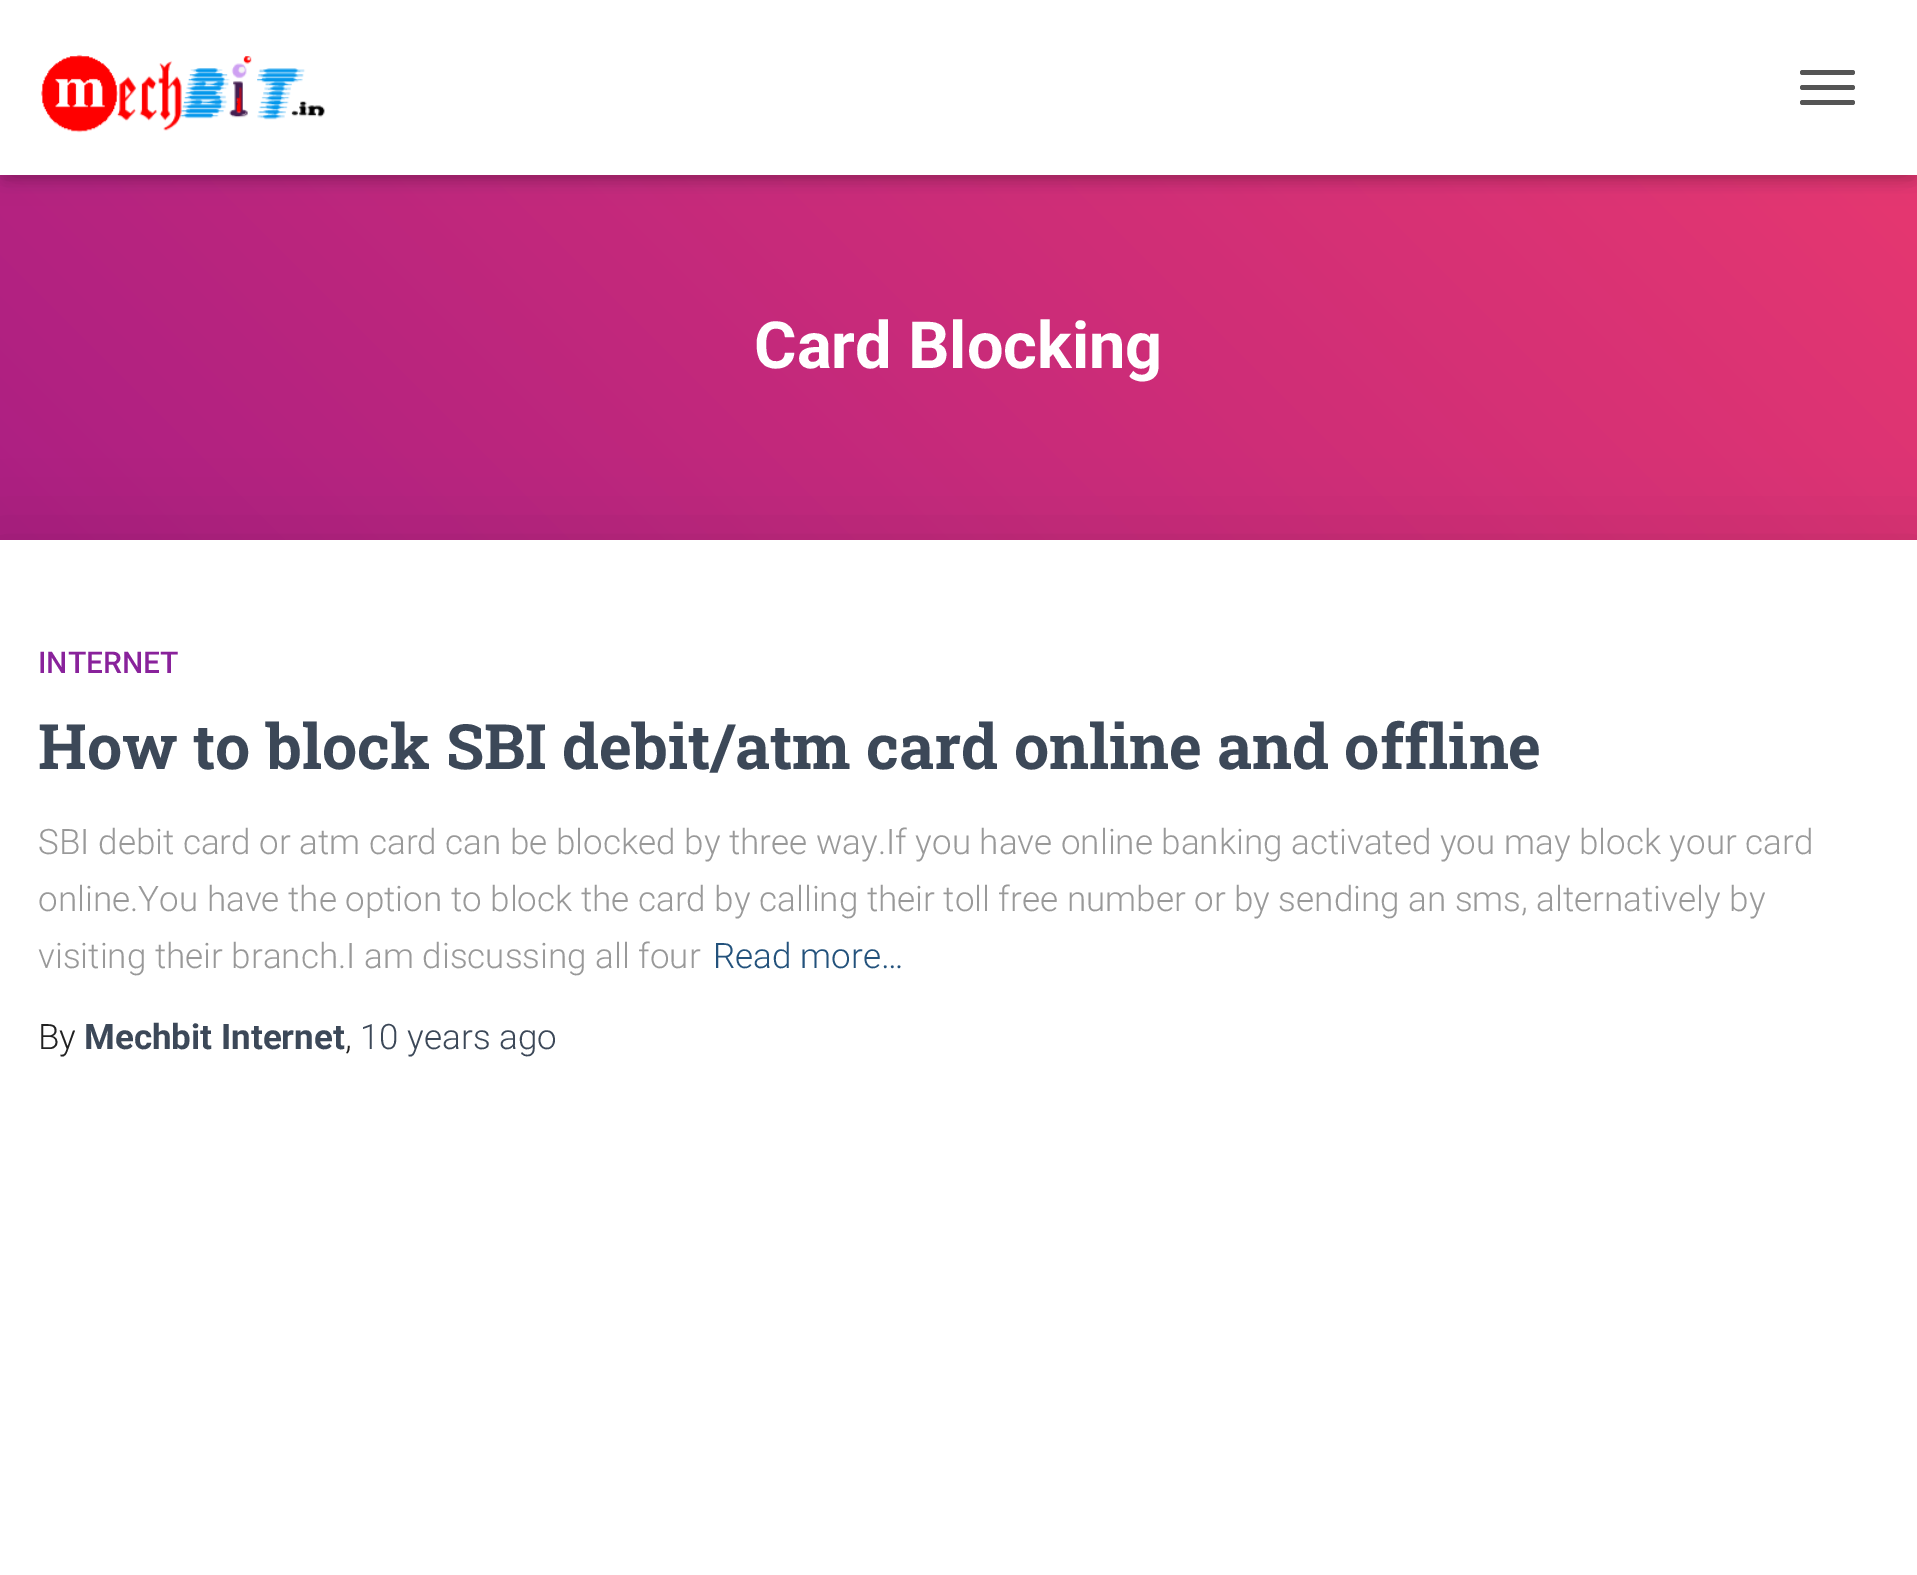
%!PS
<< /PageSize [1917 1575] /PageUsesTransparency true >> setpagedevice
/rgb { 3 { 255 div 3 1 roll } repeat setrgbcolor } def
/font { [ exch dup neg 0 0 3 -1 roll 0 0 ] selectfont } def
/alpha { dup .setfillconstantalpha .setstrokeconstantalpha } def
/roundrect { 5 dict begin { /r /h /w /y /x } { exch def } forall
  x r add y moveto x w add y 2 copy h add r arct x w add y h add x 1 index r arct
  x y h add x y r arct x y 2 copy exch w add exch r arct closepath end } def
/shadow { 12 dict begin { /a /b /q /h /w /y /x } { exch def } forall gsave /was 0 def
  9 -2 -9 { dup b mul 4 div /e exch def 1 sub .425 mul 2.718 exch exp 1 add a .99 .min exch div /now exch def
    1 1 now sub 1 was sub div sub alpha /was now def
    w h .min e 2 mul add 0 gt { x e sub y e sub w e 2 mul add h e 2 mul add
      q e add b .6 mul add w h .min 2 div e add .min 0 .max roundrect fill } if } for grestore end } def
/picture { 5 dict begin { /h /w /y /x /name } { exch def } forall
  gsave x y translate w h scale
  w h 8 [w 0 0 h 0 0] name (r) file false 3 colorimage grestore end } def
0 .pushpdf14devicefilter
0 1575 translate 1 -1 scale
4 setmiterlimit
255 255 255 rgb
0 0 1917 1575 rectfill
gsave 0 175 moveto 1917 175 lineto 1917 540 lineto 0 540 lineto closepath clip newpath
<< /ShadingType 2 /ColorSpace /DeviceRGB /Coords [307 997 1611 -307] /Extend [true true] /Function << /FunctionType 2 /Domain [0 1] /C0 [0.659 0.114 0.518] /C1 [0.918 0.224 0.435] /N 1 >> >> shfill grestore
0 0 0 rgb
5 15 1908 165 0 6 0.1 shadow
0 3 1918 175 0 12.5 0.12 shadow
15 18 1888 145 0 12.5 0.42 shadow
255 255 255 rgb
0 0 1917 175 rectfill
(img/1.rgb) 41 54 284 79 picture
85 85 85 rgb
1800 70 55 5 2.5 roundrect fill
1800 85 55 5 2.5 roundrect fill
1800 100 55 5 2.5 roundrect fill
0 0 0 rgb
-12 543 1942 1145 0 37.5 0.12 shadow
255 255 255 rgb
0 540 1917 1035 rectfill
/Roboto-Bold 65 font
754 368 moveto (Card Blocking) show
/Roboto-Medium 30 font
137 34 155 rgb
38 673 moveto (INTERNET) show
/RobotoSlab-Bold 62.5 font
60 72 88 rgb
38 769 moveto (How to block SBI debit/atm card online and offline) show
/Roboto-Light 35 font
153 153 153 rgb
[
  [(SBI debit card or atm card can be blocked by three way.If you have online banking activated you may block your card) 38 854]
  [(online.You have the option to block the card by calling their toll free number or by sending an sms, alternatively by) 38 911]
  [(visiting their branch.I am discussing all four) 38 968]
] { aload pop moveto show } forall
35 82 124 rgb
713 968 moveto (Read more…) show
33 33 33 rgb
38 1049 moveto (By) show
/Roboto-Bold 35 font
60 72 88 rgb
84 1049 moveto (Mechbit Internet) show
/Roboto-Light 35 font
33 33 33 rgb
345 1049 moveto (,) show
60 72 88 rgb
360 1049 moveto (10 years ago) show
.poppdf14devicefilter showpage
